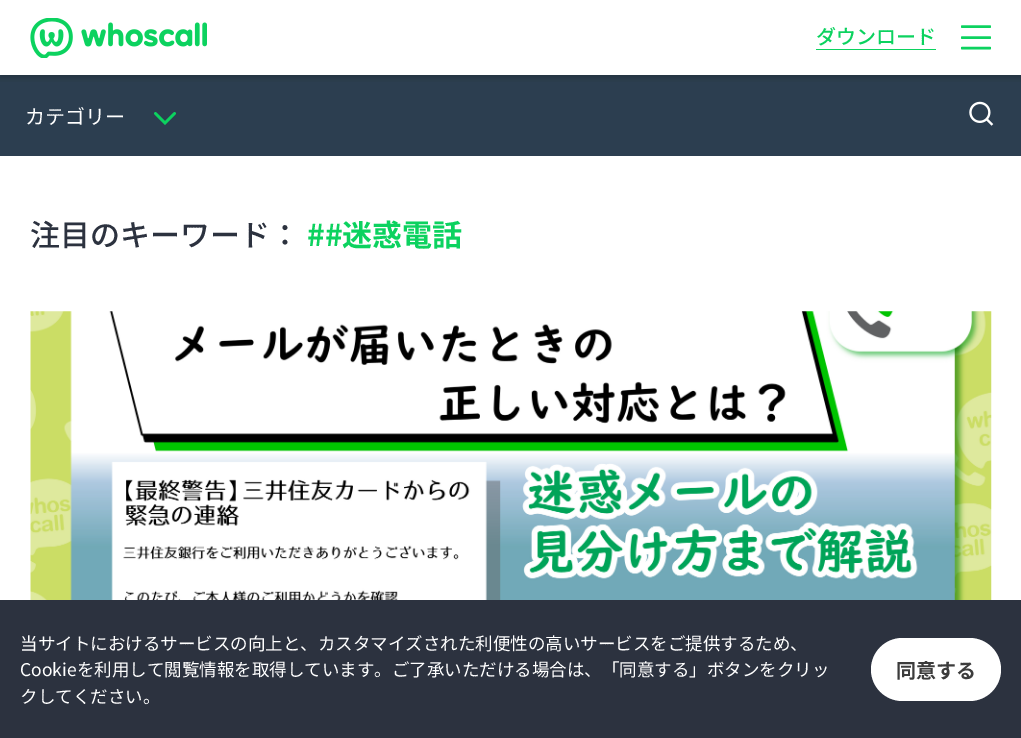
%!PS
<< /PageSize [1021 738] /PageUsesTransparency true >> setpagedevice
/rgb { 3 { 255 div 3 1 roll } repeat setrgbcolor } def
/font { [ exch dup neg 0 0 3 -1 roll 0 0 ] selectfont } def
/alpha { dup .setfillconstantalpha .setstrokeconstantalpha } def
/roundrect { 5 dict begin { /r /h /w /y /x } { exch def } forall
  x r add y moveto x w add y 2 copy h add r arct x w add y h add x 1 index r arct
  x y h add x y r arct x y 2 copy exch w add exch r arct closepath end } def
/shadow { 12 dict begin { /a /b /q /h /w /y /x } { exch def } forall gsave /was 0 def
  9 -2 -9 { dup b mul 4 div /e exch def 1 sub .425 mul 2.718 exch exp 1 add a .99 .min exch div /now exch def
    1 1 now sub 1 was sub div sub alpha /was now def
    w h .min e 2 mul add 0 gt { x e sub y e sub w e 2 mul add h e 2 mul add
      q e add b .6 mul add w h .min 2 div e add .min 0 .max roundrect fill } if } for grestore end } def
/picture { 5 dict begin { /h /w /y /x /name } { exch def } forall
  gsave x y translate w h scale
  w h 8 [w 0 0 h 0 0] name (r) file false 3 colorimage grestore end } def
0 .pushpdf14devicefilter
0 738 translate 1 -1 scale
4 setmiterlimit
255 255 255 rgb
0 0 1021 738 rectfill
44 62 80 rgb
0 75 1021 81 rectfill
gsave
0 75 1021 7 rectclip
0 0 0 rgb
0 3 1021 75 0 3 0.2 shadow
grestore
(img/1.rgb) 30 18 177 40 picture
12 210 95 rgb
816 49 120 1 rectfill
gsave
961 23 30 30 rectclip
2.5 setlinewidth
1 setlinecap
962 37.5 moveto 990 37.5 lineto 962 48 moveto 990 48 lineto 962 26.5 moveto 990 26.5 lineto stroke
grestore
2.7 setlinewidth
1 setlinecap
174.5 113.5 moveto 165 123 lineto 155.5 113.5 lineto stroke
(img/2.rgb) 969 101 25 25 picture
(img/3.rgb) 30 311 962 289 picture
44 50 63 rgb
0 600 1021 138 rectfill
255 255 255 rgb
871 638 130 63 31.5 roundrect fill
/NotoSansJP-Medium 20 font
12 210 95 rgb
816 44 moveto (ダウンロード) show
/NotoSansJP-Regular 20 font
255 255 255 rgb
25 124 moveto (カテゴリー) show
/NotoSansJP-Medium 30 font
44 50 63 rgb
30 246 moveto (注目のキーワード：) show
/NotoSansJP-Bold 30 font
12 210 95 rgb
307 246 moveto (##迷惑電話) show
/NotoSansJP-Regular 17.5 font
255 255 255 rgb
[
  [(当サイトにおけるサービスの向上と、カスタマイズされた利便性の高いサービスをご提供するため、) 20 650]
  [(Cookieを利用して閲覧情報を取得しています。ご了承いただける場合は、「同意する」ボタンをクリッ) 20 676]
  [(クしてください。) 20 703]
] { aload pop moveto show } forall
/NotoSansJP-Bold 20 font
60 60 60 rgb
896 678 moveto (同意する) show
.poppdf14devicefilter showpage
